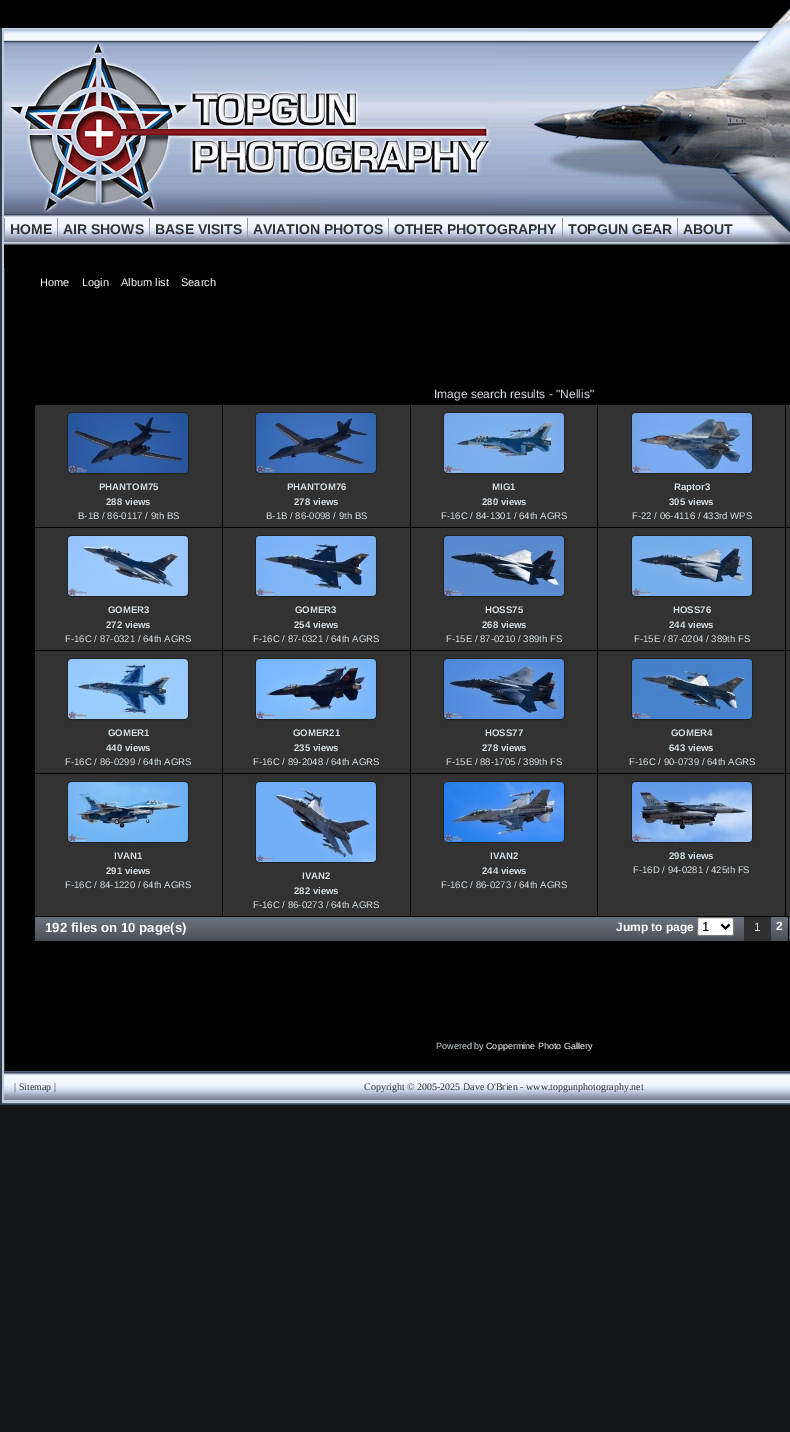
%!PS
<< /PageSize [790 1432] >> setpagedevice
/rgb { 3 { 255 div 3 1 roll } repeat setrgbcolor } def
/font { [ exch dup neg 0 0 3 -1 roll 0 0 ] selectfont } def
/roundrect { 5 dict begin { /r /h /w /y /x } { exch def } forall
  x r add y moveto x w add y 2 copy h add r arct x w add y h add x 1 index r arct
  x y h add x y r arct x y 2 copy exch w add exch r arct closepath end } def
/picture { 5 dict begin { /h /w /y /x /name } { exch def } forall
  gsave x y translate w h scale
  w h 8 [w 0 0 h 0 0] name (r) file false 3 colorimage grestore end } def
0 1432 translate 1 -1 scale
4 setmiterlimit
19 20 22 rgb
0 0 790 1432 rectfill
(img/1.rgb) 0 0 790 28 picture
[
  [4 268 786 803 0 0 0]
  [0 1103 790 2 52 64 75]
  [0 28 2 1077 52 64 75]
] { aload pop rgb rectfill } forall
187 204 221 rgb
2 setlinewidth
3 29 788 1073 rectstroke
0 0 0 rgb
4 28 786 240 rectfill
(img/2.rgb) 4 27 524 218 picture
(img/3.rgb) 9 42 483 172 picture
(img/4.rgb) 528 2 262 244 picture
[
  [4 218 1 22 153 153 153]
  [57 218 1 22 153 153 153]
  [149 218 1 22 153 153 153]
  [247 218 1 22 153 153 153]
  [388 218 1 22 153 153 153]
  [562 218 1 22 153 153 153]
  [677 218 1 22 153 153 153]
  [35 405 187 122 50 50 50]
] { aload pop rgb rectfill } forall
35 35 35 rgb
1 setlinewidth
67.5 412.5 121 61 4.5 roundrect stroke
(img/5.rgb) 68 413 120 60 picture
50 50 50 rgb
223 405 187 122 rectfill
35 35 35 rgb
255.5 412.5 121 61 4.5 roundrect stroke
(img/6.rgb) 256 413 120 60 picture
50 50 50 rgb
411 405 186 122 rectfill
35 35 35 rgb
443.5 412.5 121 61 4.5 roundrect stroke
(img/7.rgb) 444 413 120 60 picture
50 50 50 rgb
598 405 187 122 rectfill
35 35 35 rgb
631.5 412.5 121 61 4.5 roundrect stroke
(img/8.rgb) 632 413 120 60 picture
50 50 50 rgb
786 405 4 122 rectfill
35 528 187 122 rectfill
35 35 35 rgb
67.5 535.5 121 61 4.5 roundrect stroke
(img/9.rgb) 68 536 120 60 picture
50 50 50 rgb
223 528 187 122 rectfill
35 35 35 rgb
255.5 535.5 121 61 4.5 roundrect stroke
(img/10.rgb) 256 536 120 60 picture
50 50 50 rgb
411 528 186 122 rectfill
35 35 35 rgb
443.5 535.5 121 61 4.5 roundrect stroke
(img/11.rgb) 444 536 120 60 picture
50 50 50 rgb
598 528 187 122 rectfill
35 35 35 rgb
631.5 535.5 121 61 4.5 roundrect stroke
(img/12.rgb) 632 536 120 60 picture
50 50 50 rgb
786 528 4 122 rectfill
35 651 187 122 rectfill
35 35 35 rgb
67.5 658.5 121 61 4.5 roundrect stroke
(img/13.rgb) 68 659 120 60 picture
50 50 50 rgb
223 651 187 122 rectfill
35 35 35 rgb
255.5 658.5 121 61 4.5 roundrect stroke
(img/14.rgb) 256 659 120 60 picture
50 50 50 rgb
411 651 186 122 rectfill
35 35 35 rgb
443.5 658.5 121 61 4.5 roundrect stroke
(img/15.rgb) 444 659 120 60 picture
50 50 50 rgb
598 651 187 122 rectfill
35 35 35 rgb
631.5 658.5 121 61 4.5 roundrect stroke
(img/16.rgb) 632 659 120 60 picture
50 50 50 rgb
786 651 4 122 rectfill
35 774 187 142 rectfill
35 35 35 rgb
67.5 781.5 121 61 4.5 roundrect stroke
(img/17.rgb) 68 782 120 60 picture
50 50 50 rgb
411 774 186 142 rectfill
35 35 35 rgb
443.5 781.5 121 61 4.5 roundrect stroke
(img/18.rgb) 444 782 120 60 picture
50 50 50 rgb
598 774 187 142 rectfill
35 35 35 rgb
631.5 781.5 121 61 4.5 roundrect stroke
(img/19.rgb) 632 782 120 60 picture
50 50 50 rgb
786 774 4 142 rectfill
223 774 187 142 rectfill
35 35 35 rgb
255.5 781.5 121 81 4.5 roundrect stroke
(img/20.rgb) 256 782 120 80 picture
(img/21.rgb) 35 917 581 24 picture
(img/22.rgb) 616 917 128 24 picture
255 255 255 rgb
697.5 917.5 36 18 1.5 roundrect gsave fill grestore
118 118 118 rgb
stroke
0 0 0 rgb
2 setlinewidth
721.5 924.5 moveto 725.5 928.5 lineto 729.5 924.5 lineto stroke
48 48 48 rgb
744 917 27 24 rectfill
(img/23.rgb) 771 917 17 24 picture
(img/24.rgb) 789 917 1 24 picture
(img/25.rgb) 4 1071 786 30 picture
/LiberationSans-Bold 14 font
51 51 51 rgb
[
  [(HOME) 10 234]
  [(AIR SHOWS) 63 234]
  [(BASE VISITS) 155 234]
  [(AVIATION PHOTOS) 253 234]
  [(OTHER PHOTOGRAPHY) 394 234]
  [(TOPGUN GEAR) 568 234]
  [(ABOUT) 683 234]
] { aload pop moveto show } forall
/LiberationSans-Regular 11 font
255 255 255 rgb
[
  [(Home) 40 286]
  [(Login) 82 286]
  [(Album list) 121 286]
  [(Search) 181 286]
] { aload pop moveto show } forall
/LiberationSans-Regular 12 font
214 223 229 rgb
434 398 moveto (Image search results - "Nellis") show
/LiberationSans-Bold 9.6 font
99 490 moveto (PHANTOM75) show
106 505 moveto (288 views) show
/LiberationSans-Regular 9.6 font
78 519 moveto (B-1B / 86-0117 / 9th BS) show
/LiberationSans-Bold 9.6 font
287 490 moveto (PHANTOM76) show
294 505 moveto (278 views) show
/LiberationSans-Regular 9.6 font
266 519 moveto (B-1B / 86-0098 / 9th BS) show
/LiberationSans-Bold 9.6 font
492 490 moveto (MIG1) show
482 505 moveto (280 views) show
/LiberationSans-Regular 9.6 font
441 519 moveto (F-16C / 84-1301 / 64th AGRS) show
/LiberationSans-Bold 9.6 font
674 490 moveto (Raptor3) show
669 505 moveto (305 views) show
/LiberationSans-Regular 9.6 font
632 519 moveto (F-22 / 06-4116 / 433rd WPS) show
/LiberationSans-Bold 9.6 font
108 613 moveto (GOMER3) show
106 628 moveto (272 views) show
/LiberationSans-Regular 9.6 font
65 642 moveto (F-16C / 87-0321 / 64th AGRS) show
/LiberationSans-Bold 9.6 font
295 613 moveto (GOMER3) show
294 628 moveto (254 views) show
/LiberationSans-Regular 9.6 font
253 642 moveto (F-16C / 87-0321 / 64th AGRS) show
/LiberationSans-Bold 9.6 font
485 613 moveto (HOSS75) show
482 628 moveto (268 views) show
/LiberationSans-Regular 9.6 font
446 642 moveto (F-15E / 87-0210 / 389th FS) show
/LiberationSans-Bold 9.6 font
673 613 moveto (HOSS76) show
669 628 moveto (244 views) show
/LiberationSans-Regular 9.6 font
634 642 moveto (F-15E / 87-0204 / 389th FS) show
/LiberationSans-Bold 9.6 font
108 736 moveto (GOMER1) show
106 751 moveto (440 views) show
/LiberationSans-Regular 9.6 font
65 765 moveto (F-16C / 86-0299 / 64th AGRS) show
/LiberationSans-Bold 9.6 font
293 736 moveto (GOMER21) show
294 751 moveto (235 views) show
/LiberationSans-Regular 9.6 font
253 765 moveto (F-16C / 89-2048 / 64th AGRS) show
/LiberationSans-Bold 9.6 font
485 736 moveto (HOSS77) show
482 751 moveto (278 views) show
/LiberationSans-Regular 9.6 font
446 765 moveto (F-15E / 88-1705 / 389th FS) show
/LiberationSans-Bold 9.6 font
671 736 moveto (GOMER4) show
669 751 moveto (643 views) show
/LiberationSans-Regular 9.6 font
629 765 moveto (F-16C / 90-0739 / 64th AGRS) show
/LiberationSans-Bold 9.6 font
114 859 moveto (IVAN1) show
106 874 moveto (291 views) show
/LiberationSans-Regular 9.6 font
65 888 moveto (F-16C / 84-1220 / 64th AGRS) show
/LiberationSans-Bold 9.6 font
490 859 moveto (IVAN2) show
482 874 moveto (244 views) show
/LiberationSans-Regular 9.6 font
441 888 moveto (F-16C / 86-0273 / 64th AGRS) show
/LiberationSans-Bold 9.6 font
669 859 moveto (298 views) show
/LiberationSans-Regular 9.6 font
633 873 moveto (F-16D / 94-0281 / 425th FS) show
/LiberationSans-Bold 9.6 font
302 879 moveto (IVAN2) show
294 894 moveto (282 views) show
/LiberationSans-Regular 9.6 font
253 908 moveto (F-16C / 86-0273 / 64th AGRS) show
/LiberationSans-Bold 13.25 font
255 255 255 rgb
45 932 moveto (192 files on 10 page\(s\)) show
/LiberationSans-Bold 12 font
616 931 moveto (Jump to page) show
/LiberationSans-Regular 13 font
0 0 0 rgb
702 931 moveto (1) show
/LiberationSans-Regular 12 font
214 223 229 rgb
754 931 moveto (1) show
/LiberationSans-Bold 12 font
255 255 255 rgb
776 930 moveto (2) show
/LiberationSans-Regular 9 font
214 223 229 rgb
436 1049 moveto (Powered by) show
255 255 255 rgb
486 1049 moveto (Coppermine Photo Gallery) show
/LiberationSerif-Regular 10 font
51 51 51 rgb
14 1090 moveto (| Sitemap |) show
364 1090 moveto (Copyright © 2005-2025 Dave O'Brien - www.topgunphotography.net) show
showpage
